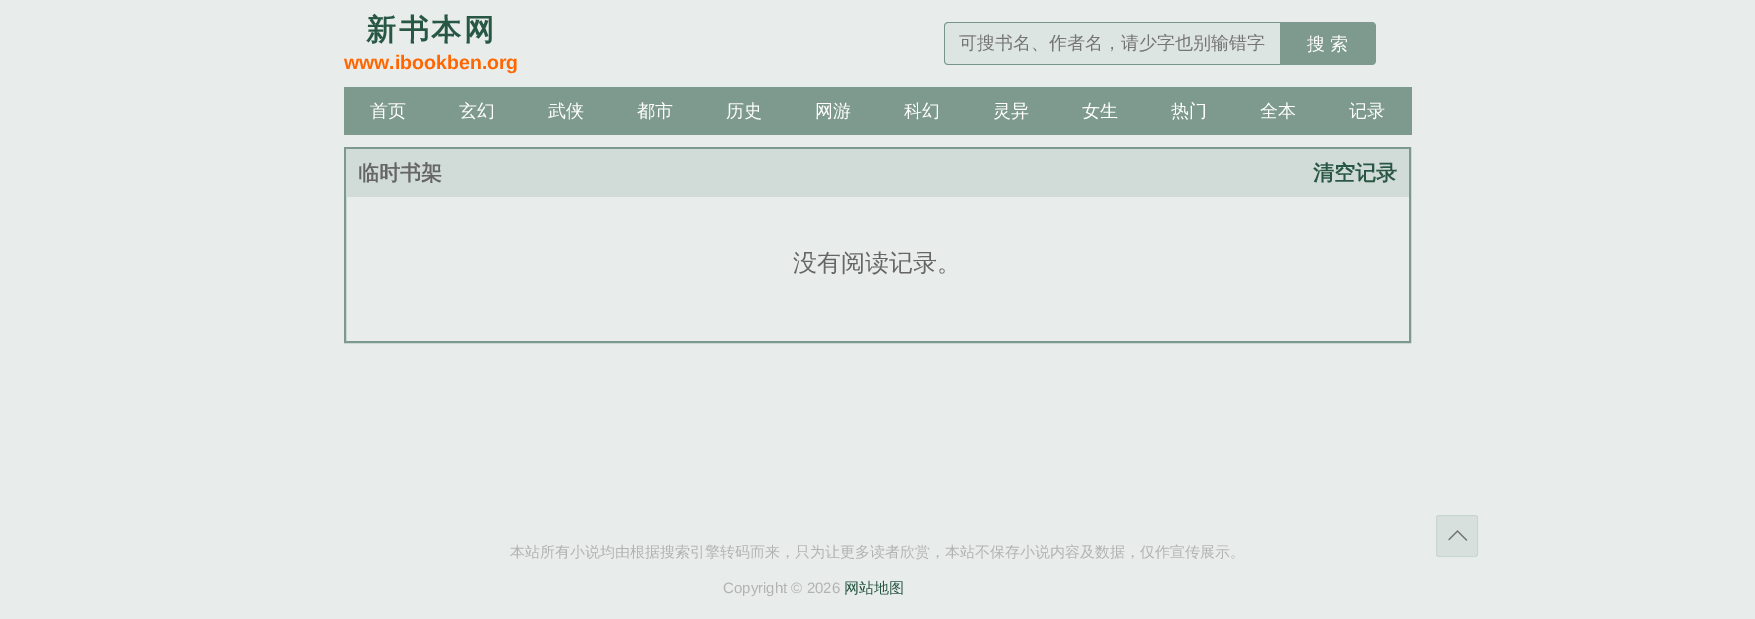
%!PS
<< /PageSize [1755 619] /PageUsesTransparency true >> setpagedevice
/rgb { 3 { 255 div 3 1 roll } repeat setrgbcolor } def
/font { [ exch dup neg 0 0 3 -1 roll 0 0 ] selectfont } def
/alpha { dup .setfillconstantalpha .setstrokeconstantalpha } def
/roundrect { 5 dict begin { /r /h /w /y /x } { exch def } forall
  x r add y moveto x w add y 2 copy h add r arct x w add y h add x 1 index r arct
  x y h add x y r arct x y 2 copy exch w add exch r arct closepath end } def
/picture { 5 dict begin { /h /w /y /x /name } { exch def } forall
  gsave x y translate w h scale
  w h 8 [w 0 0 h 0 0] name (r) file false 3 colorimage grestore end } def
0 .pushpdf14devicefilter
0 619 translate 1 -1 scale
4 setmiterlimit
232 237 235 rgb
0 0 1755 619 rectfill
221 229 226 rgb
948 22 moveto 1280 22 lineto 1280 65 lineto 948 65 lineto 946 65 944 63 944 61 curveto 944 26 lineto 944 24 946 22 948 22 curveto closepath fill
0.5 alpha
20 70 50 rgb
948 22 moveto 1280 22 lineto 1280 65 lineto 948 65 lineto 946 65 944 63 944 61 curveto 944 26 lineto 944 24 946 22 948 22 curveto closepath 948 23 moveto 1280 23 lineto 1280 64 lineto 948 64 lineto 946 64 945 63 945 61 curveto 945 26 lineto 945 24 946 23 948 23 curveto closepath eofill
1 alpha
126 154 143 rgb
1280 22 moveto 1372 22 lineto 1374 22 1376 24 1376 26 curveto 1376 61 lineto 1376 63 1374 65 1372 65 curveto 1280 65 lineto closepath fill
344 87 1068 48 rectfill
125 153 142 rgb
2 setlinewidth
345 148 1065 194 rectstroke
209 219 216 rgb
346 149 1063 48 rectfill
216 224 221 rgb
1436 515 42 42 3 roundrect fill
(img/1.rgb) 1436 530 32 15 picture
0.1 alpha
73 112 96 rgb
1 setlinewidth
1436.5 515.5 41 41 2.5 roundrect stroke
/WenQuanYiZenHei-Bold 30 font
1 alpha
41 87 69 rgb
366 40 moveto 2.5 0 (新书本网) ashow
gsave
344 0 1068 87 rectclip
/LiberationSans-Bold 19.5 font
255 102 0 rgb
344 69 moveto (www.ibookben.org) show
grestore
/WenQuanYiZenHei-Medium 18 font
117 117 117 rgb
959 49 moveto (可搜书名、作者名，请少字也别输错字) show
255 255 255 rgb
[
  [(搜 索) 1307 50]
  [(首页) 370 117]
  [(玄幻) 459 117]
  [(武侠) 548 117]
  [(都市) 637 117]
  [(历史) 726 117]
  [(网游) 815 117]
  [(科幻) 904 117]
  [(灵异) 993 117]
  [(女生) 1082 117]
  [(热门) 1171 117]
  [(全本) 1260 117]
  [(记录) 1349 117]
] { aload pop moveto show } forall
/WenQuanYiZenHei-Bold 21 font
102 102 102 rgb
358 180 moveto (临时书架) show
41 87 69 rgb
1313 180 moveto (清空记录) show
/WenQuanYiZenHei-Medium 24 font
102 102 102 rgb
793 271 moveto (没有阅读记录。) show
/WenQuanYiZenHei-Medium 15 font
178 178 178 rgb
510 557 moveto (本站所有小说均由根据搜索引擎转码而来，只为让更多读者欣赏，本站不保存小说内容及数据，仅作宣传展示。) show
/LiberationSans-Regular 15 font
723 593 moveto (Copyright © 2026) show
/WenQuanYiZenHei-Medium 15 font
41 87 69 rgb
844 593 moveto (网站地图) show
.poppdf14devicefilter showpage
